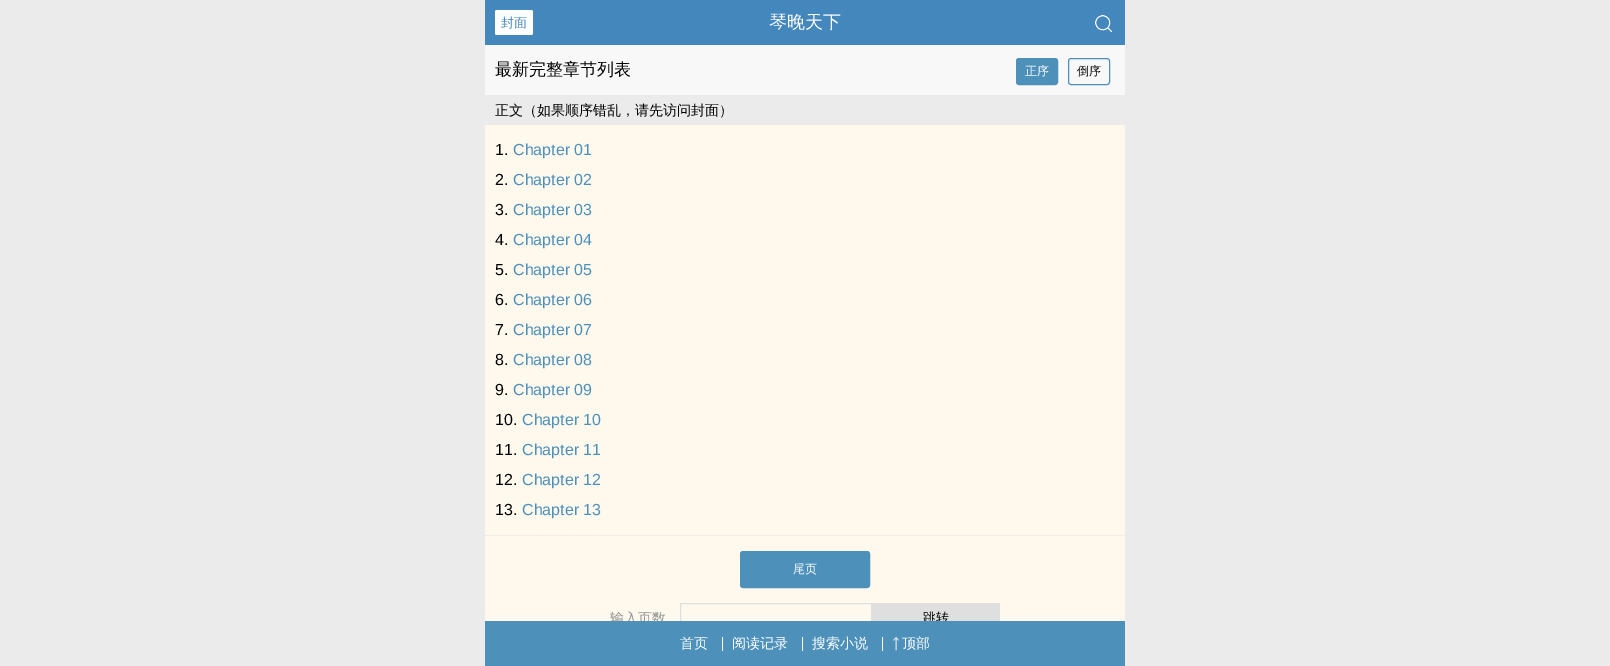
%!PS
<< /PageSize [1610 666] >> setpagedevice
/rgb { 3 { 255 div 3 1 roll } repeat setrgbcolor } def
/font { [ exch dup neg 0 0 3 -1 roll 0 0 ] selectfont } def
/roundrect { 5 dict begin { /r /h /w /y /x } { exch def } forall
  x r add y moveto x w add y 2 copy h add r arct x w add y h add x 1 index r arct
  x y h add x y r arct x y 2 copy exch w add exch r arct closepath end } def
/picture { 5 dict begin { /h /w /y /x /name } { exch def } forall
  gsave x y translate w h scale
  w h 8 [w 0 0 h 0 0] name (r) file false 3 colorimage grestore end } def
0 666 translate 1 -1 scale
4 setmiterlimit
235 235 235 rgb
0 0 1610 666 rectfill
255 248 237 rgb
485 125 640 496 rectfill
67 135 188 rgb
485 0 640 45 rectfill
255 255 255 rgb
495 10 38 25 2 roundrect fill
(img/1.rgb) 1095 15 18 18 picture
248 248 248 rgb
485 45 640 50 rectfill
77 145 187 rgb
1016.5 58.5 41 26 2.5 roundrect gsave fill grestore
stroke
1068.5 58.5 41 26 2.5 roundrect stroke
241 238 231 rgb
485 535 640 1 rectfill
77 145 187 rgb
740.5 551.5 129 36 2.5 roundrect gsave fill grestore
stroke
223 223 223 rgb
680.5 603.5 191 29 rectstroke
872 603 128 18 rectfill
/WenQuanYiZenHei-Medium 13 font
67 135 188 rgb
501 27 moveto (封面) show
/WenQuanYiZenHei-Medium 18 font
255 255 255 rgb
769 28 moveto (琴晚天下) show
/WenQuanYiZenHei-Medium 17 font
0 0 0 rgb
495 75 moveto (最新完整章节列表) show
/WenQuanYiZenHei-Medium 12 font
255 255 255 rgb
1025 75 moveto (正序) show
0 0 0 rgb
1077 75 moveto (倒序) show
/WenQuanYiZenHei-Medium 14 font
495 115 moveto (正文（如果顺序错乱，请先访问封面）) show
/LiberationSans-Regular 16 font
495 155 moveto (1.) show
77 145 187 rgb
513 155 moveto (Chapter 01) show
0 0 0 rgb
495 185 moveto (2.) show
77 145 187 rgb
513 185 moveto (Chapter 02) show
0 0 0 rgb
495 215 moveto (3.) show
77 145 187 rgb
513 215 moveto (Chapter 03) show
0 0 0 rgb
495 245 moveto (4.) show
77 145 187 rgb
513 245 moveto (Chapter 04) show
0 0 0 rgb
495 275 moveto (5.) show
77 145 187 rgb
513 275 moveto (Chapter 05) show
0 0 0 rgb
495 305 moveto (6.) show
77 145 187 rgb
513 305 moveto (Chapter 06) show
0 0 0 rgb
495 335 moveto (7.) show
77 145 187 rgb
513 335 moveto (Chapter 07) show
0 0 0 rgb
495 365 moveto (8.) show
77 145 187 rgb
513 365 moveto (Chapter 08) show
0 0 0 rgb
495 395 moveto (9.) show
77 145 187 rgb
513 395 moveto (Chapter 09) show
0 0 0 rgb
495 425 moveto (10.) show
77 145 187 rgb
522 425 moveto (Chapter 10) show
0 0 0 rgb
495 455 moveto (11.) show
77 145 187 rgb
522 455 moveto (Chapter 11) show
0 0 0 rgb
495 485 moveto (12.) show
77 145 187 rgb
522 485 moveto (Chapter 12) show
0 0 0 rgb
495 515 moveto (13.) show
77 145 187 rgb
522 515 moveto (Chapter 13) show
/WenQuanYiZenHei-Medium 12 font
255 255 255 rgb
793 573 moveto (尾页) show
/WenQuanYiZenHei-Medium 14 font
145 145 144 rgb
610 623 moveto (输入页数) show
/WenQuanYiZenHei-Medium 13 font
0 0 0 rgb
923 622 moveto (跳转) show
77 145 187 rgb
485 621 640 45 rectfill
/WenQuanYiZenHei-Medium 14 font
255 255 255 rgb
680 648 moveto (首页) show
722 637 1 14 rectfill
732 648 moveto (阅读记录) show
802 637 1 14 rectfill
812 648 moveto (搜索小说) show
882 637 1 14 rectfill
(img/2.rgb) 893 636 6 15 picture
902 648 moveto (顶部) show
showpage
